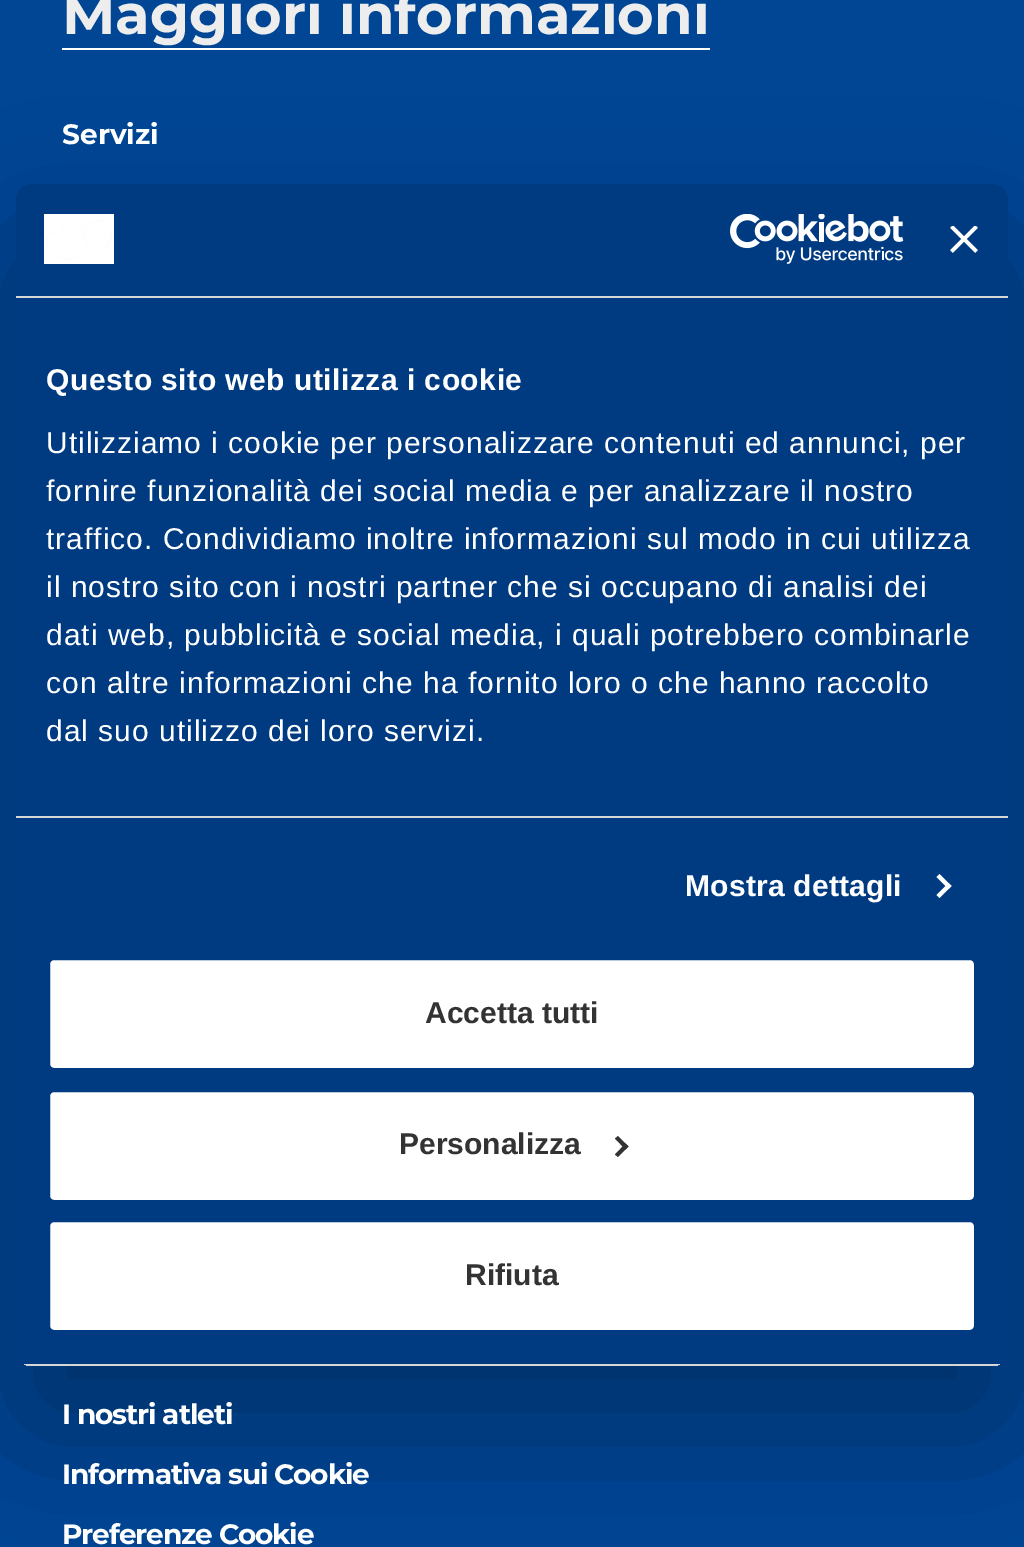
%!PS
<< /PageSize [1024 1547] /PageUsesTransparency true >> setpagedevice
/rgb { 3 { 255 div 3 1 roll } repeat setrgbcolor } def
/font { [ exch dup neg 0 0 3 -1 roll 0 0 ] selectfont } def
/alpha { dup .setfillconstantalpha .setstrokeconstantalpha } def
/roundrect { 5 dict begin { /r /h /w /y /x } { exch def } forall
  x r add y moveto x w add y 2 copy h add r arct x w add y h add x 1 index r arct
  x y h add x y r arct x y 2 copy exch w add exch r arct closepath end } def
/shadow { 12 dict begin { /a /b /q /h /w /y /x } { exch def } forall gsave /was 0 def
  9 -2 -9 { dup b mul 4 div /e exch def 1 sub .425 mul 2.718 exch exp 1 add a .99 .min exch div /now exch def
    1 1 now sub 1 was sub div sub alpha /was now def
    w h .min e 2 mul add 0 gt { x e sub y e sub w e 2 mul add h e 2 mul add
      q e add b .6 mul add w h .min 2 div e add .min 0 .max roundrect fill } if } for grestore end } def
/picture { 5 dict begin { /h /w /y /x /name } { exch def } forall
  gsave x y translate w h scale
  w h 8 [w 0 0 h 0 0] name (r) file false 3 colorimage grestore end } def
0 .pushpdf14devicefilter
0 1547 translate 1 -1 scale
4 setmiterlimit
0 70 149 rgb
0 0 1024 1547 rectfill
255 255 255 rgb
62 48 648 2 rectfill
0 0 0 rgb
16 248 992 1182 16 68 0.3 shadow
0 59 130 rgb
16 184 992 1182 16 roundrect fill
214 214 214 rgb
16 296 992 2 rectfill
(img/1.rgb) 44 214 70 50 picture
(img/2.rgb) 730 214 174 50 picture
(img/3.rgb) 950 226 28 27 picture
16 816 992 2 rectfill
255 255 255 rgb
939.5 874 moveto 951.5 886 lineto 948.5 889 lineto 936.5 877 lineto closepath fill
948.5 883 moveto 951.5 886 lineto 939.5 898 lineto 936.5 895 lineto closepath fill
gsave
16 184 992 1182 16 roundrect clip newpath
214 214 214 rgb
16 1364 992 2 rectfill
grestore
48 958 928 112 6 roundrect gsave fill grestore
0 59 130 rgb
4 setlinewidth
stroke
255 255 255 rgb
48 1090 928 112 6 roundrect gsave fill grestore
0 59 130 rgb
stroke
51 51 51 rgb
618 1136 moveto 628.5 1146.5 lineto 625.5 1149.5 lineto 615 1138.5 lineto closepath fill
625.5 1143.5 moveto 628.5 1146.5 lineto 618 1157 lineto 615 1154.5 lineto closepath fill
255 255 255 rgb
48 1220 928 112 6 roundrect gsave fill grestore
0 59 130 rgb
stroke
/Montserrat-Bold 56 font
237 237 237 rgb
62 34 moveto (Maggiori informazioni) show
/Montserrat-Bold 28 font
255 255 255 rgb
62 144 moveto (Servizi) show
62 1424 moveto -1.1 0 (I nostri atleti) ashow
62 1484 moveto -1.1 0 (Informativa sui Cookie) ashow
62 1544 moveto -1.1 0 (Preferenze Cookie) ashow
/LiberationSans-Bold 30 font
46 390 moveto 0.5 0 (Questo sito web utilizza i cookie) ashow
/LiberationSans-Regular 30 font
46 453 moveto 1 0 (Utilizziamo i cookie per personalizzare contenuti ed annunci, per) ashow
46 501 moveto 1 0 (fornire funzionalità dei social media e per analizzare il nostro) ashow
46 549 moveto 1 0 (traffico. Condividiamo inoltre informazioni sul modo in cui utilizza) ashow
46 597 moveto 1 0 (il nostro sito con i nostri partner che si occupano di analisi dei) ashow
46 645 moveto 1 0 (dati web, pubblicità e social media, i quali potrebbero combinarle) ashow
46 693 moveto 1 0 (con altre informazioni che ha fornito loro o che hanno raccolto) ashow
46 741 moveto 1 0 (dal suo utilizzo dei loro servizi.) ashow
/LiberationSans-Bold 30 font
685 896 moveto 0.25 0 (Mostra dettagli) ashow
51 51 51 rgb
[
  [(Accetta tutti) 425 1023]
  [(Personalizza) 399 1154]
  [(Rifiuta) 465 1285]
] { aload pop moveto show } forall
.poppdf14devicefilter showpage
